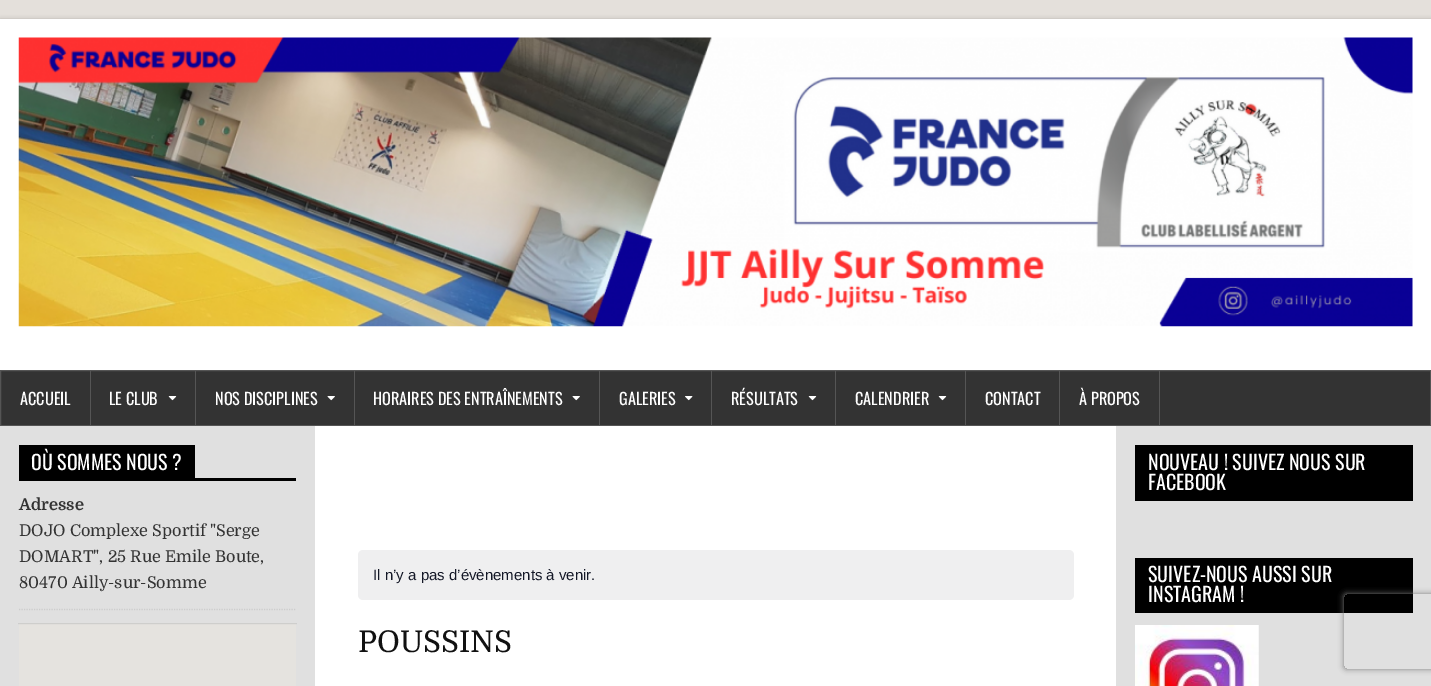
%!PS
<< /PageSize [1431 686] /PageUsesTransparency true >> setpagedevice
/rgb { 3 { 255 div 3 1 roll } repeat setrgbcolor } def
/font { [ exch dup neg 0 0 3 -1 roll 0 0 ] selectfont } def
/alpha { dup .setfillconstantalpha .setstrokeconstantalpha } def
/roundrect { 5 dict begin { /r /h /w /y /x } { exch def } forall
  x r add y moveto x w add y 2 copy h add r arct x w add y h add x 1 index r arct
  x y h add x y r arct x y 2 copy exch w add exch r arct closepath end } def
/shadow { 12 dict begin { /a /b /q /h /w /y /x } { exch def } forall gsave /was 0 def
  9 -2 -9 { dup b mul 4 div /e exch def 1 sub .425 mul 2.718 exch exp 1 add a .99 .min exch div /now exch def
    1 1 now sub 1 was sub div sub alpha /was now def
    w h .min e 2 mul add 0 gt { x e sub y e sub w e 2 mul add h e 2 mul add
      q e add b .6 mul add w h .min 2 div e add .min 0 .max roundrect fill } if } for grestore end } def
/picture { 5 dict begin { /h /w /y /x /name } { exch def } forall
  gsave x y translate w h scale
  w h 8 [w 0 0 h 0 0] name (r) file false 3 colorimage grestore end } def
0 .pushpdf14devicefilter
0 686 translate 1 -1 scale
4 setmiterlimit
228 224 219 rgb
0 0 1431 686 rectfill
0 0 0 rgb
0 20 1431 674 0 2.5 0.3 shadow
255 255 255 rgb
0 19 1431 351 rectfill
(img/1.rgb) 18 37 1395 290 picture
51 51 51 rgb
0.5 370.5 moveto 1430.5 370.5 lineto 1430.5 425.5 lineto 0.5 425.5 lineto closepath gsave fill grestore
85 85 85 rgb
stroke
90 371 1 54 rectfill
195 371 1 54 rectfill
(img/2.rgb) 168 396 9 5 picture
354 371 1 54 rectfill
(img/3.rgb) 327 396 8 5 picture
599 371 1 54 rectfill
(img/3.rgb) 572 396 8 5 picture
711 371 1 54 rectfill
(img/4.rgb) 685 396 8 5 picture
835 371 1 54 rectfill
(img/2.rgb) 808 396 9 5 picture
965 371 1 54 rectfill
(img/2.rgb) 938 396 9 5 picture
[
  [1059 371 1 54 85 85 85]
  [1159 371 1 54 85 85 85]
  [0 426 315 260 224 224 224]
  [19 478 277 3 0 0 0]
  [19 445 176 33 0 0 0]
] { aload pop rgb rectfill } forall
204 204 204 rgb
1.2 setlinewidth
[1.25 1.25] 0 setdash
19 609.5 moveto 296 609.5 lineto stroke
(img/5.rgb) 18 623 279 63 picture
255 255 255 rgb
315 426 801 260 rectfill
239 239 240 rgb
358 550 716 50 5 roundrect fill
[
  [1116 426 315 260 224 224 224]
  [1135 445 278 56 0 0 0]
  [1135 558 278 55 0 0 0]
] { aload pop rgb rectfill } forall
(img/6.rgb) 1135 625 124 61 picture
gsave
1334 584 moveto 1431 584 lineto 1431 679 lineto 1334 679 lineto closepath 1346.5 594 moveto 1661.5 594 lineto 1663 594 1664 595 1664 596.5 curveto 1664 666.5 lineto 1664 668 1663 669 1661.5 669 curveto 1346.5 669 lineto 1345 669 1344 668 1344 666.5 curveto 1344 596.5 lineto 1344 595 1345 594 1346.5 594 curveto closepath eoclip newpath
128 128 128 rgb
1344 594 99 75 2.5 3 1 shadow
grestore
/Oswald-Regular 16.25 font
255 255 255 rgb
[
  [(ACCUEIL) 20 405]
  [(LE CLUB) 109 405]
  [(NOS DISCIPLINES) 215 405]
  [(HORAIRES DES ENTRAÎNEMENTS) 373 405]
  [(GALERIES) 619 405]
  [(RÉSULTATS) 731 405]
  [(CALENDRIER) 855 405]
  [(CONTACT) 985 405]
  [(À PROPOS) 1079 405]
] { aload pop moveto show } forall
/Oswald-Regular 20 font
31 470 moveto (OÙ SOMMES NOUS ?) show
/Domine-Bold 16.25 font
51 51 51 rgb
19 510 moveto (Adresse) show
/Domine-Regular 16.25 font
[
  [(DOJO Complexe Sportif "Serge) 19 536]
  [(DOMART", 25 Rue Emile Boute,) 19 562]
  [(80470 Ailly-sur-Somme) 19 588]
] { aload pop moveto show } forall
/LiberationSans-Regular 15 font
20 24 39 rgb
373 580 moveto (Il n’y a pas d’évènements à venir.) show
/Domine-Regular 30 font
17 17 17 rgb
358 652 moveto (POUSSINS) show
/Oswald-Regular 20 font
255 255 255 rgb
[
  [(NOUVEAU ! SUIVEZ NOUS SUR) 1148 470]
  [(FACEBOOK) 1148 490]
  [(SUIVEZ-NOUS AUSSI SUR) 1148 582]
  [(INSTAGRAM !) 1148 602]
] { aload pop moveto show } forall
.poppdf14devicefilter showpage
